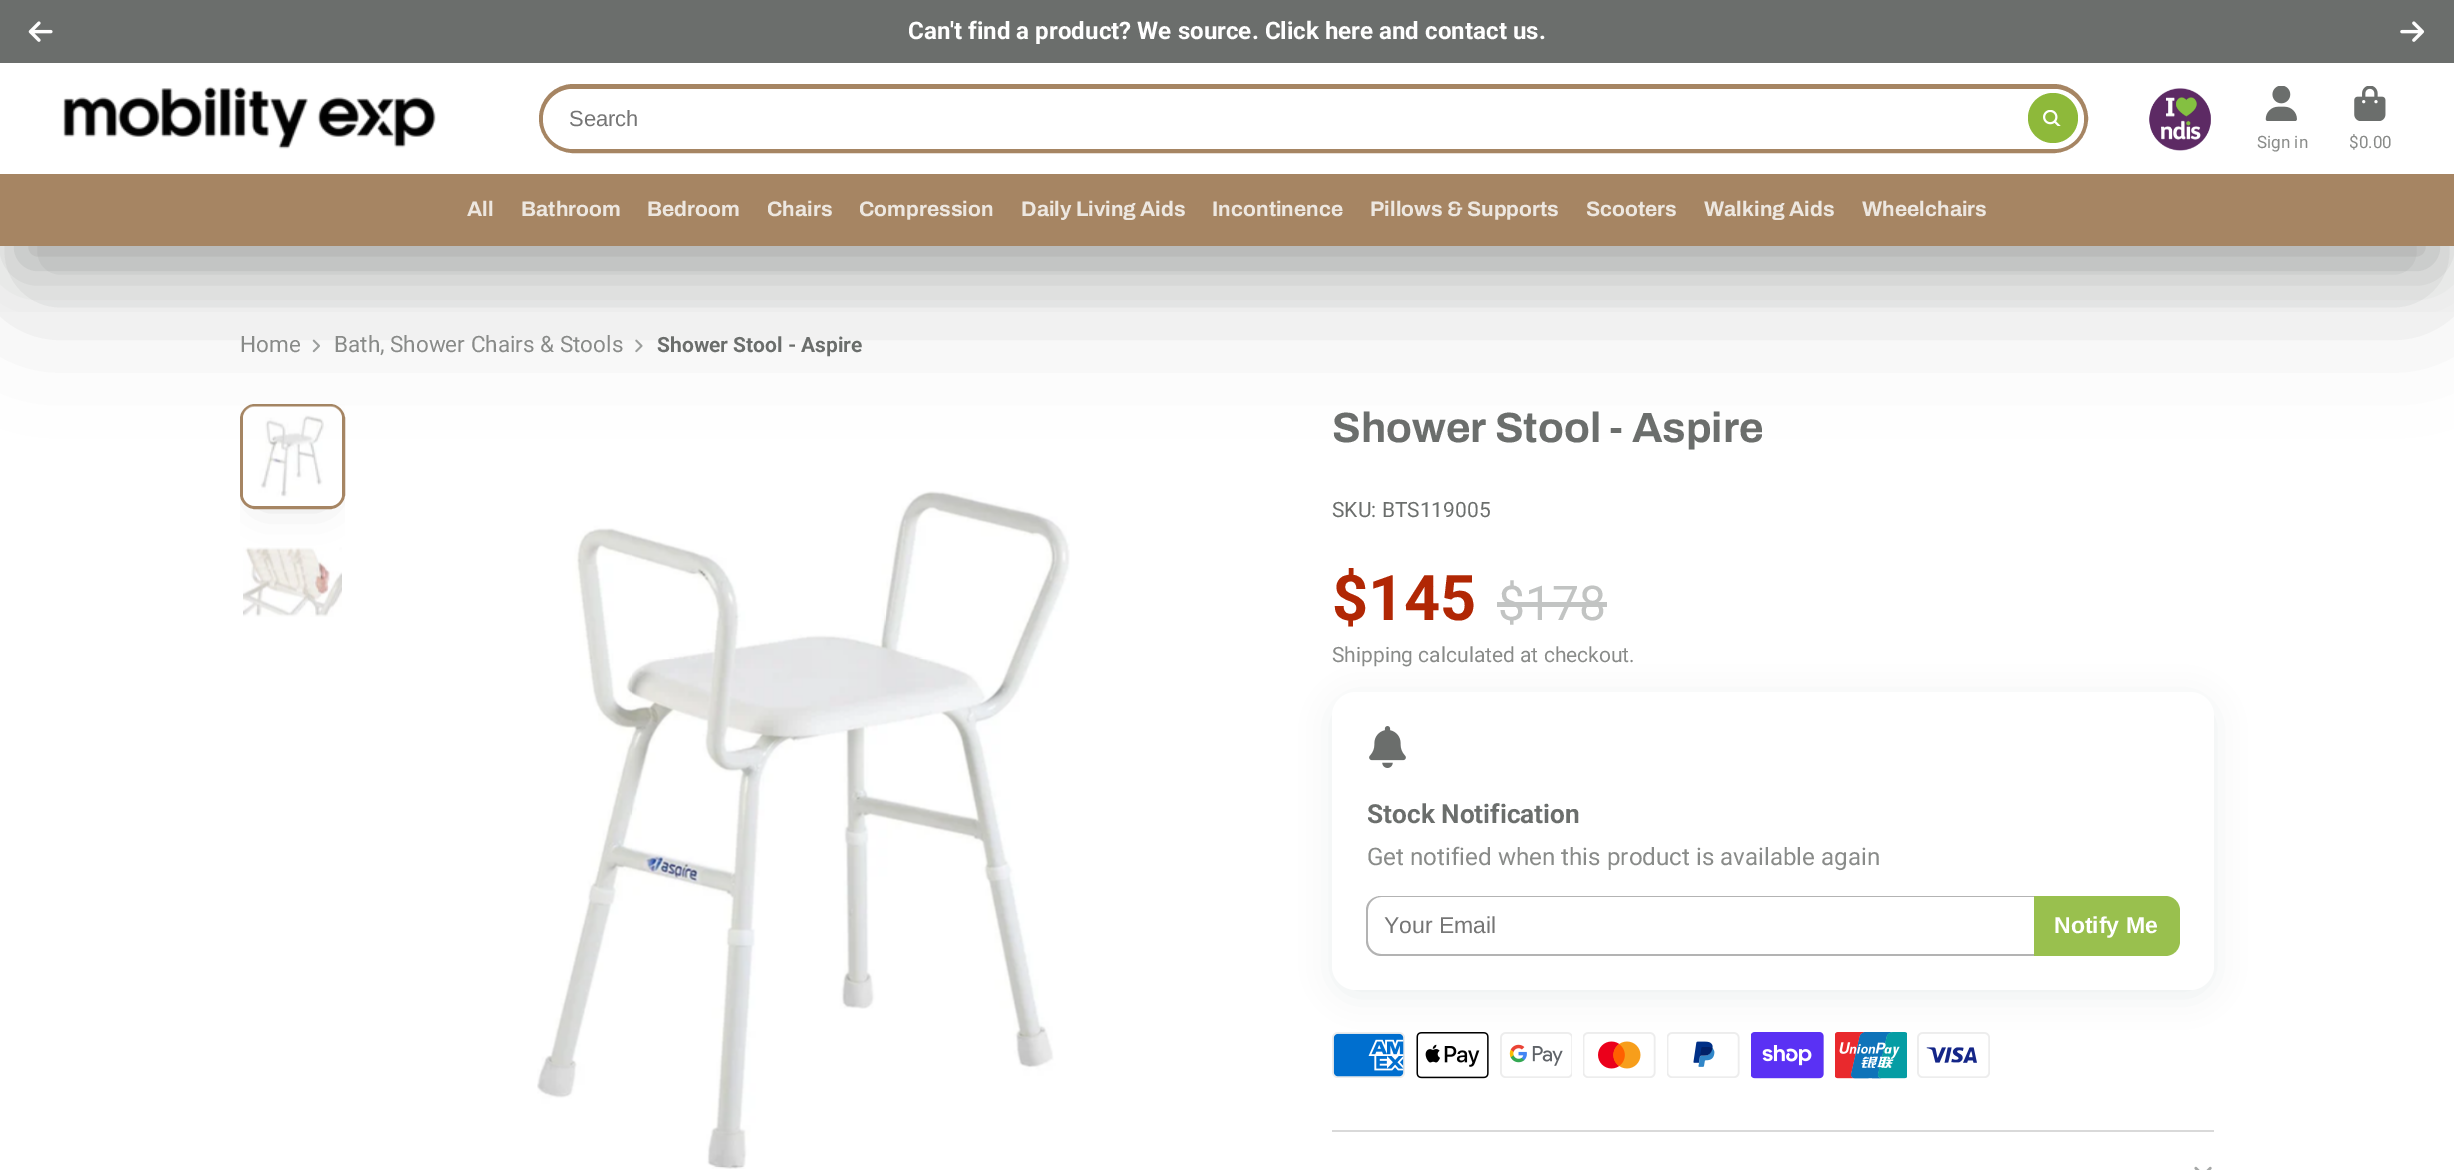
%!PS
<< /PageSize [2454 1170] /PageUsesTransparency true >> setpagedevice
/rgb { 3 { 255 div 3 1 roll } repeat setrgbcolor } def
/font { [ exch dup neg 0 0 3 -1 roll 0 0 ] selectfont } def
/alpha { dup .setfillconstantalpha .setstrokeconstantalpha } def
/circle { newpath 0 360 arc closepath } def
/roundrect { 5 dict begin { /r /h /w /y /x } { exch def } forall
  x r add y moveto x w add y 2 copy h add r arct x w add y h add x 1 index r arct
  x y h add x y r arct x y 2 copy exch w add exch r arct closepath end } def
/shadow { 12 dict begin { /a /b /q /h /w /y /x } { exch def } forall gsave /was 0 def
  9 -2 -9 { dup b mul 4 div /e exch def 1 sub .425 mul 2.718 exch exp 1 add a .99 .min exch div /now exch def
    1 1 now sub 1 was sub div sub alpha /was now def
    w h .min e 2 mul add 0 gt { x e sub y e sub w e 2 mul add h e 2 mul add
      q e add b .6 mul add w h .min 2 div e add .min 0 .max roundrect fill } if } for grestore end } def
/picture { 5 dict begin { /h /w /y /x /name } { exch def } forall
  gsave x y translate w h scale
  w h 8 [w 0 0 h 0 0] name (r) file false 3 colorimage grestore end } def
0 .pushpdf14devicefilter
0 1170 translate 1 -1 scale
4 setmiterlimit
255 255 255 rgb
0 0 2454 1170 rectfill
107 110 108 rgb
0 0 2454 63 rectfill
(img/1.rgb) 28 21 25 21 picture
(img/2.rgb) 2400 21 25 21 picture
(img/8.rgb) 312 339 8 14 picture
(img/9.rgb) 635 339 8 14 picture
gsave
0 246 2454 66 rectclip
94 97 95 rgb
21 123 2412 141 0 29 0.4 shadow
grestore
gsave
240 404 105 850 rectclip
94 97 95 rgb
261 435 63 63 0 21 0.3 shadow
grestore
166 133 99 rgb
3 setlinewidth
241.5 405.5 102 102 13.5 roundrect stroke
(img/10.rgb) 243 406 99 100 picture
gsave
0 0 moveto 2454 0 lineto 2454 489 lineto 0 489 lineto closepath 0 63 moveto 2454 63 lineto 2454 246 lineto 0 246 lineto closepath eoclip newpath
94 97 95 rgb
21 150 2412 141 0 65.5 0.3 shadow
grestore
(img/3.rgb) 63 86 373 63 picture
5 setlinewidth
541.5 86.5 1544 64 32 roundrect stroke
255 255 255 rgb
543 89 1541 60 30 roundrect fill
142 185 58 rgb
2053 118 25 circle fill
(img/4.rgb) 2043 110 18 16 picture
(img/5.rgb) 2149 88 62 63 picture
(img/6.rgb) 2265 86 32 35 picture
(img/7.rgb) 2354 86 32 35 picture
166 133 99 rgb
0 174 2454 72 rectfill
(img/11.rgb) 243 547 99 70 picture
(img/12.rgb) 537 491 533 678 picture
194 196 195 rgb
1497 602 110 5 rectfill
(img/14.rgb) 1332 1032 73 46 picture
(img/15.rgb) 1416 1032 73 47 picture
(img/16.rgb) 1500 1032 72 46 picture
(img/17.rgb) 1583 1032 73 46 picture
(img/18.rgb) 1667 1032 73 46 picture
(img/19.rgb) 1751 1032 73 47 picture
(img/20.rgb) 1835 1032 72 47 picture
(img/21.rgb) 1917 1032 73 46 picture
19 63 82 rgb
1332 698 882 298 24 15 0.07 shadow
255 255 255 rgb
1332 692 882 298 24 roundrect fill
(img/13.rgb) 1369 726 37 42 picture
179 179 179 rgb
1381 896 moveto 2034 896 lineto 2034 956 lineto 1381 956 lineto 1373 956 1366 949 1366 941 curveto 1366 910 lineto 1366 902 1373 896 1381 896 curveto closepath 1381 897 moveto 2034 897 lineto 2034 954 lineto 1381 954 lineto 1374 954 1368 948 1368 941 curveto 1368 910 lineto 1368 903 1374 897 1381 897 curveto closepath eofill
153 192 78 rgb
2034 896 moveto 2165 896 lineto 2173.5 896 2180 902.5 2180 911 curveto 2180 941 lineto 2180 949.5 2173.5 956 2165 956 curveto 2034 956 lineto closepath fill
217 217 217 rgb
1332 1130 882 2 rectfill
(img/22.rgb) 2194 1166 18 4 picture
/Roboto-Bold 24.15 font
255 255 255 rgb
908 39 moveto (Can't find a product? We source. Click here and contact us.) show
/LiberationSans-Regular 22 font
117 117 117 rgb
569 126 moveto (Search) show
/Roboto-Regular 17 font
137 139 137 rgb
2257 148 moveto (Sign in) show
2349 148 moveto ($0.00) show
/Archivo-Bold 21 font
237 231 224 rgb
[
  [(All) 467 216]
  [(Bathroom) 521 216]
  [(Bedroom) 647 216]
  [(Chairs) 767 216]
  [(Compression) 859 216]
  [(Daily Living Aids) 1021 216]
  [(Incontinence) 1212 216]
  [(Pillows & Supports) 1370 216]
  [(Scooters) 1586 216]
  [(Walking Aids) 1704 216]
  [(Wheelchairs) 1862 216]
] { aload pop moveto show } forall
/Roboto-Regular 22.5 font
137 139 137 rgb
240 352 moveto (Home) show
334 352 moveto (Bath, Shower Chairs & Stools) show
/Roboto-Bold 21 font
107 110 108 rgb
657 352 moveto (Shower Stool - Aspire) show
/Archivo-Bold 42.25 font
1332 442 moveto (Shower Stool - Aspire) show
/Roboto-Regular 21 font
1332 517 moveto (SKU: BTS119005) show
/Roboto-Bold 63 font
177 39 4 rgb
1332 620 moveto ($145) show
/Roboto-Regular 48 font
194 196 195 rgb
1498 620 moveto ($178) show
/Roboto-Regular 21 font
137 139 137 rgb
1332 662 moveto (Shipping calculated at checkout.) show
/Roboto-Bold 26.25 font
107 110 108 rgb
1367 823 moveto (Stock Notification) show
/Roboto-Regular 24.15 font
137 139 137 rgb
1367 865 moveto (Get notified when this product is available again) show
/LiberationSans-Regular 23 font
117 117 117 rgb
1384 933 moveto (Your Email) show
/LiberationSans-Bold 23 font
255 255 255 rgb
2054 933 moveto (Notify Me) show
.poppdf14devicefilter showpage
